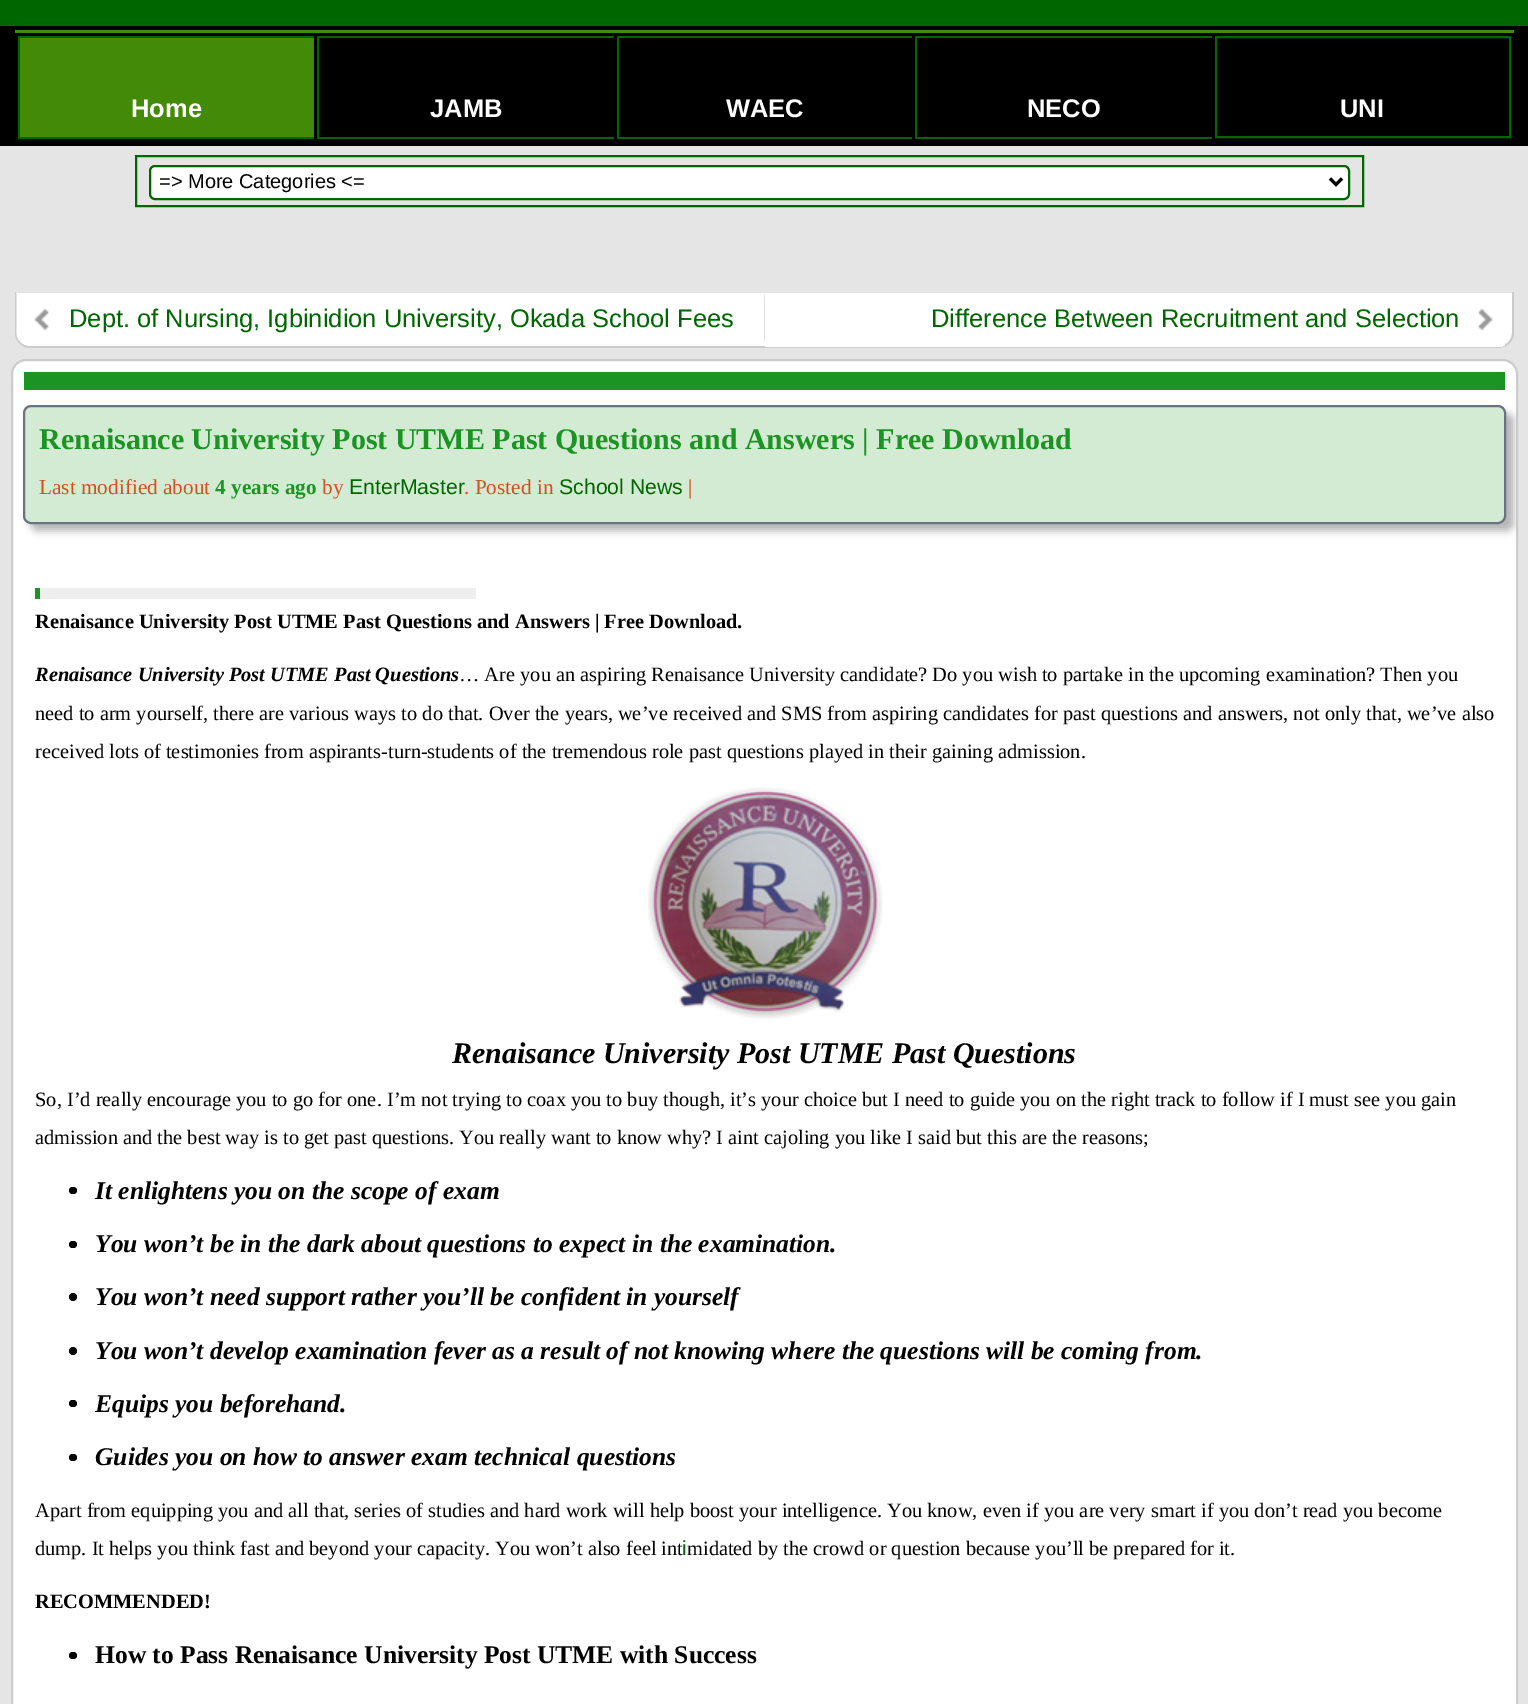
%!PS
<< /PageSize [1528 1704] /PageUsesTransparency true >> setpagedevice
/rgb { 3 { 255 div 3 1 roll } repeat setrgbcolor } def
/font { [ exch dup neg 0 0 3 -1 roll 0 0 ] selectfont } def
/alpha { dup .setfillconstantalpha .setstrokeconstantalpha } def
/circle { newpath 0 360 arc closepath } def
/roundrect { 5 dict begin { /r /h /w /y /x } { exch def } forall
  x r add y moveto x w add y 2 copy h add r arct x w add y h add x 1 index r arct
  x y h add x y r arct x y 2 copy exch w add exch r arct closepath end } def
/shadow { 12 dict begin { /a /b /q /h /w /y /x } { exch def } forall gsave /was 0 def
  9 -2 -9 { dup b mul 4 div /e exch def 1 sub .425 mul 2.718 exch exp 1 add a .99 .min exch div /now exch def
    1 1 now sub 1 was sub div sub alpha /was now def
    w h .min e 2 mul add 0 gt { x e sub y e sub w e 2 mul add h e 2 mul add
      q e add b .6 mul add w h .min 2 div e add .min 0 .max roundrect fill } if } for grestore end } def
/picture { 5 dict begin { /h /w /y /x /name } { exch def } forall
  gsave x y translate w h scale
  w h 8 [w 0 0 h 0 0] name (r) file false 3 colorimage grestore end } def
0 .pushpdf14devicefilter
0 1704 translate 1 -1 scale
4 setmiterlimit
229 229 229 rgb
0 0 1528 1704 rectfill
[
  [0 0 1528 26 0 102 0]
  [0 26 1528 120 0 0 0]
  [15 30 1499 3 67 138 8]
  [20 38 294 99 67 138 8]
  [18 36 296 2 0 102 0]
  [18 137 296 2 0 102 0]
  [18 36 2 102 0 102 0]
  [317 36 297 2 0 102 0]
  [317 137 297 2 0 102 0]
  [317 36 2 102 0 102 0]
  [617 36 295 2 0 102 0]
  [617 137 295 2 0 102 0]
  [617 36 2 102 0 102 0]
  [915 36 297 2 0 102 0]
  [915 137 297 2 0 102 0]
  [915 36 2 102 0 102 0]
] { aload pop rgb rectfill } forall
2 setlinewidth
1216 37 294 100 rectstroke
136 156 1227 50 rectstroke
255 255 255 rgb
150 166 1199 33 5 roundrect gsave fill grestore
0 102 0 rgb
stroke
0 0 0 rgb
3 setlinewidth
1330 178.5 moveto 1336 184.5 lineto 1342 178.5 lineto stroke
255 255 255 rgb
17 293 moveto 1512 293 lineto 1512 333 lineto 1512 340.5 1505.5 347 1498 347 curveto 31 347 lineto 23.5 347 17 340.5 17 333 curveto closepath fill
204 204 204 rgb
15 292 moveto 1514 292 lineto 1514 333 lineto 1514 341 1507 348 1498 348 curveto 30 348 lineto 22 348 15 341 15 333 curveto closepath 16 292 moveto 1512 292 lineto 1512 333 lineto 1512 340 1506 346 1498 346 curveto 30 346 lineto 23 346 16 340 16 333 curveto closepath eofill
(img/1.rgb) 34 308 16 23 picture
221 221 221 rgb
764 300 moveto 765 293 lineto 765 346 lineto 764 339 lineto closepath fill
255 255 255 rgb
765 346 moveto 32 346 lineto 25 346 18 342 17 335 curveto 19 337 25 339 32 339 curveto 764 339 lineto closepath fill
(img/2.rgb) 1477 308 16 23 picture
gsave
17 293 moveto 1512 293 lineto 1512 333 lineto 1512 340.5 1505.5 347 1498 347 curveto 31 347 lineto 23.5 347 17 340.5 17 333 curveto closepath clip newpath
765 339 740 8 rectfill
grestore
12 360 1505 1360 14 roundrect gsave fill grestore
204 204 204 rgb
2 setlinewidth
stroke
27 148 35 rgb
24 372 1481 18 rectfill
gsave
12 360 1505 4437 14 roundrect clip newpath
179 179 179 rgb
30 413 1484 118 8 4 1 shadow
grestore
212 235 211 rgb
24 406 1481 117 7 roundrect gsave fill grestore
105 115 130 rgb
stroke
238 238 238 rgb
40 588 436 11 rectfill
27 148 35 rgb
35 588 5 11 rectfill
(img/3.rgb) 648 787 235 232 picture
0 0 0 rgb
69 1187 8 7 3.5 roundrect fill
69 1241 8 7 3.5 roundrect fill
73 1297 4 circle fill
73 1351 4 circle fill
69 1400 8 7 3.5 roundrect fill
69 1454 8 7 3.5 roundrect fill
69 1652 8 7 3.5 roundrect fill
/LiberationSans-Bold 25.5 font
255 255 255 rgb
[
  [(Home) 131 117]
  [(JAMB) 430 117]
  [(WAEC) 726 117]
  [(NECO) 1027 117]
  [(UNI) 1340 117]
] { aload pop moveto show } forall
/LiberationSans-Regular 20 font
0 0 0 rgb
159 188 moveto (=> More Categories <=) show
/LiberationSans-Regular 25.5 font
0 102 0 rgb
69 327 moveto (Dept. of Nursing, Igbinidion University, Okada School Fees) show
931 327 moveto (Difference Between Recruitment and Selection) show
/LiberationSerif-Bold 30 font
27 148 35 rgb
39 449 moveto (Renaisance University Post UTME Past Questions and Answers | Free Download) show
/LiberationSerif-Regular 21.25 font
213 78 33 rgb
39 494 moveto (Last modified about) show
/LiberationSerif-Bold 21.25 font
27 148 35 rgb
215 494 moveto (4 years ago) show
/LiberationSerif-Regular 21.25 font
213 78 33 rgb
322 494 moveto (by) show
/LiberationSans-Regular 21.25 font
0 102 0 rgb
349 494 moveto (EnterMaster) show
/LiberationSerif-Regular 21.25 font
213 78 33 rgb
464 494 moveto (. Posted in) show
/LiberationSans-Regular 21.25 font
0 102 0 rgb
559 494 moveto (School News) show
/LiberationSerif-Regular 21.25 font
213 78 33 rgb
688 494 moveto (|) show
/LiberationSerif-Bold 20.4 font
0 0 0 rgb
35 628 moveto (Renaisance University Post UTME Past Questions and Answers | Free Download.) show
/LiberationSerif-BoldItalic 20.4 font
35 681 moveto (Renaisance University Post UTME Past Questions) show
/LiberationSerif-Regular 20.4 font
[
  [(… Are you an aspiring Renaisance University candidate? Do you wish to partake in the upcoming examination? Then you) 459 681]
  [(need to arm yourself, there are various ways to do that. Over the years, we’ve received and SMS from aspiring candidates for past questions and answers, not only that, we’ve also) 35 720]
  [(received lots of testimonies from aspirants-turn-students of the tremendous role past questions played in their gaining admission.) 35 758]
] { aload pop moveto show } forall
/LiberationSerif-BoldItalic 30 font
452 1063 moveto (Renaisance University Post UTME Past Questions) show
/LiberationSerif-Regular 20.4 font
35 1106 moveto (So, I’d really encourage you to go for one. I’m not trying to coax you to buy though, it’s your choice but I need to guide you on the right track to follow if I must see you gain) show
35 1144 moveto (admission and the best way is to get past questions. You really want to know why? I aint cajoling you like I said but this are the reasons;) show
/LiberationSerif-BoldItalic 25.5 font
[
  [(It enlightens you on the scope of exam) 95 1199]
  [(You won’t be in the dark about questions to expect in the examination.) 95 1252]
  [(You won’t need support rather you’ll be confident in yourself) 95 1305]
  [(You won’t develop examination fever as a result of not knowing where the questions will be coming from.) 95 1359]
  [(Equips you beforehand.) 95 1412]
  [(Guides you on how to answer exam technical questions) 95 1465]
] { aload pop moveto show } forall
/LiberationSerif-Regular 20.4 font
35 1517 moveto (Apart from equipping you and all that, series of studies and hard work will help boost your intelligence. You know, even if you are very smart if you don’t read you become) show
35 1555 moveto (dump. It helps you think fast and beyond your capacity. You won’t also feel int) show
/LiberationSans-Regular 20.4 font
0 102 0 rgb
682 1555 moveto (i) show
/LiberationSerif-Regular 20.4 font
0 0 0 rgb
687 1555 moveto (midated by the crowd or question because you’ll be prepared for it.) show
/LiberationSerif-Bold 20.4 font
35 1608 moveto (RECOMMENDED!) show
/LiberationSerif-Bold 25.5 font
95 1663 moveto (How to Pass Renaisance University Post UTME with Success) show
.poppdf14devicefilter showpage
